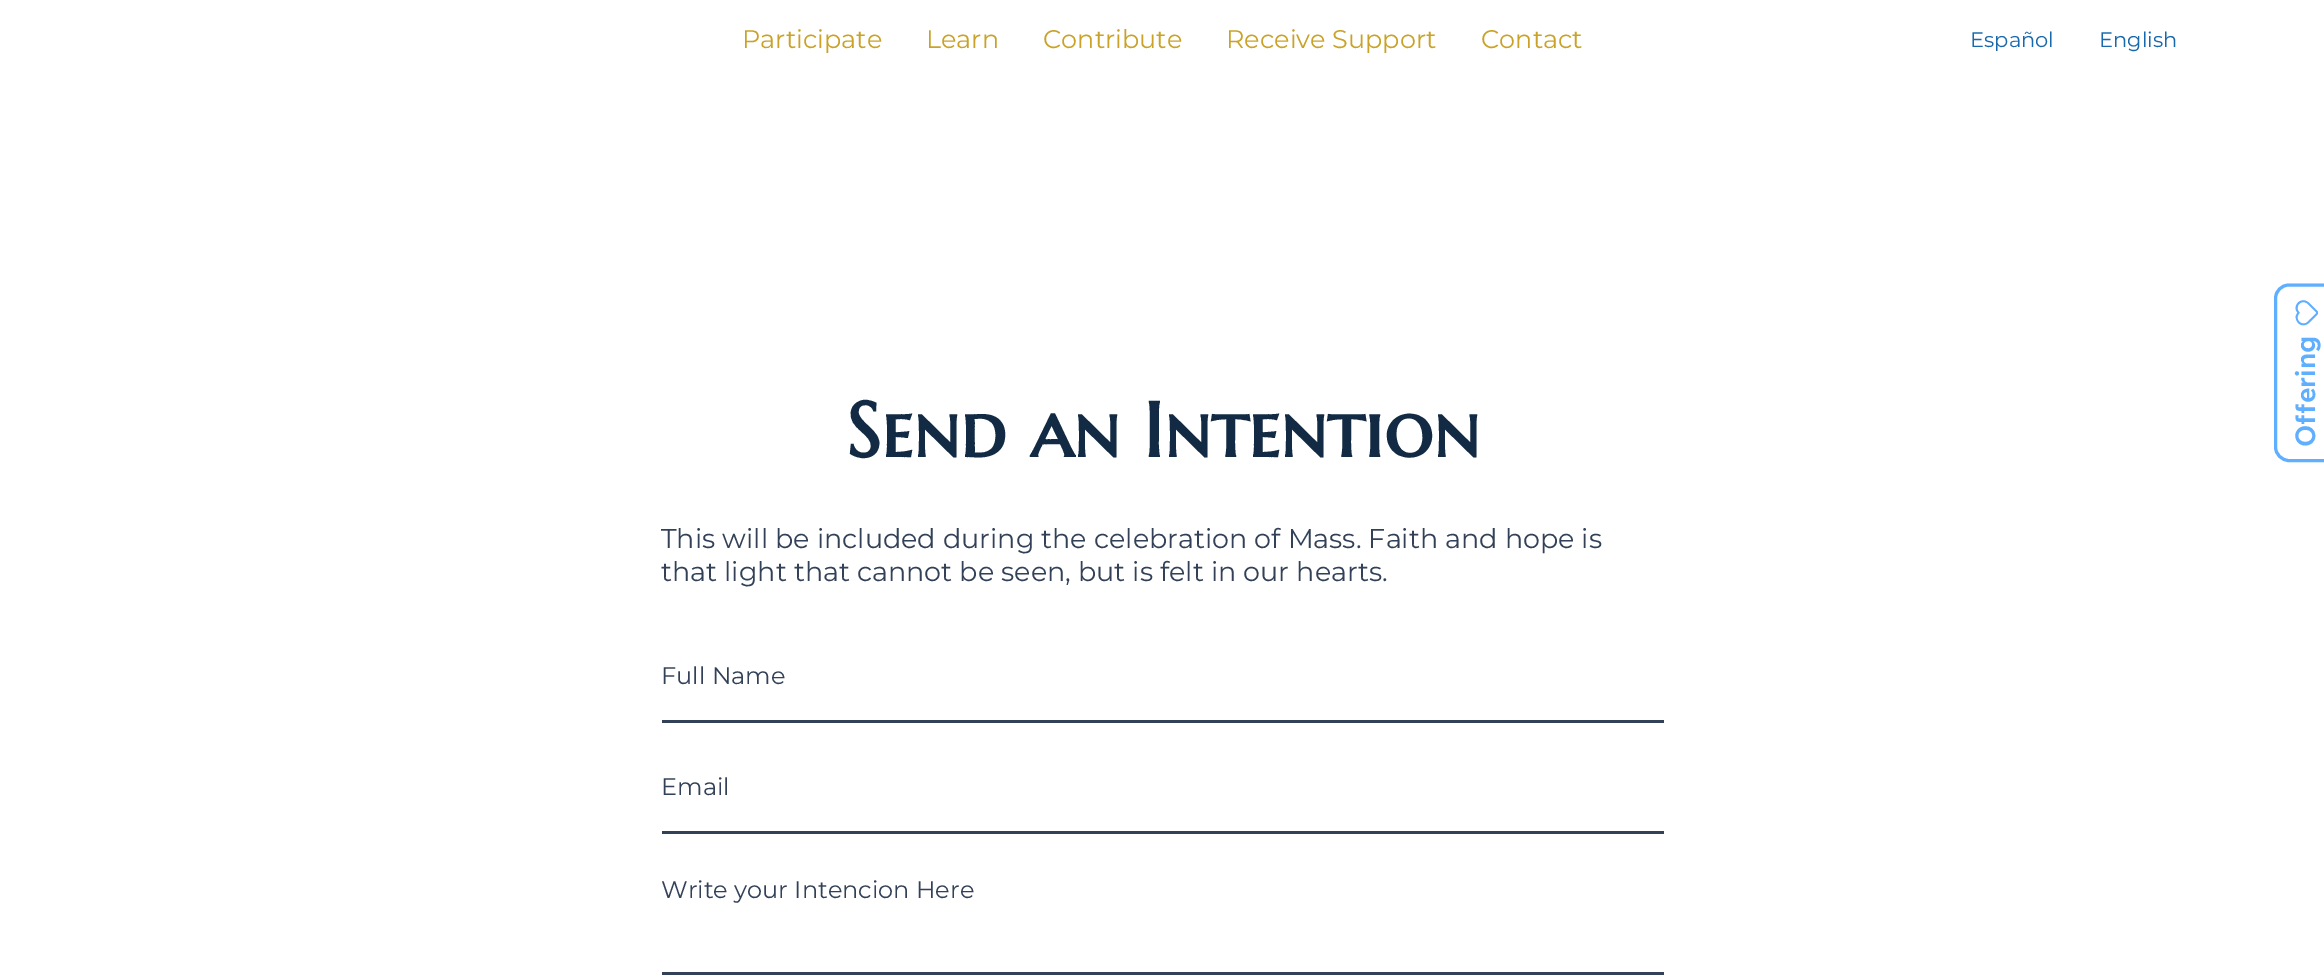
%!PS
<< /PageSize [2324 976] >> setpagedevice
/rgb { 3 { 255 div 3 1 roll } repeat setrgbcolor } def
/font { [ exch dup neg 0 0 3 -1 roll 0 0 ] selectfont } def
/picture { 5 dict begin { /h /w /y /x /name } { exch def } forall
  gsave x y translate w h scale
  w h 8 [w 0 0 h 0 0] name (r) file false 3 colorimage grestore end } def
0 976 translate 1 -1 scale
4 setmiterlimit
255 255 255 rgb
0 0 2324 976 rectfill
[
  [662 720 1002 3 50 65 88]
  [662 831 1002 3 50 65 88]
  [662 972 1002 3 50 65 88]
] { aload pop rgb rectfill } forall
96 175 255 rgb
3 setlinewidth
2275.5 447 moveto 2275.5 298.5 lineto 2275.5 291 2281.5 285 2289 285 curveto 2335.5 285 lineto 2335.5 460.5 lineto 2289 460.5 lineto 2281.5 460.5 2275.5 454 2275.5 447 curveto closepath stroke
(img/1.rgb) 2295 300 23 26 picture
/Montserrat-Regular 25.5 font
201 162 39 rgb
[
  [(Participate) 742 48]
  [(Learn) 926 48]
  [(Contribute) 1043 48]
  [(Receive Support) 1226 48]
  [(Contact) 1481 48]
] { aload pop moveto show } forall
/Montserrat-Regular 21 font
23 104 172 rgb
1970 47 moveto (Español) show
2099 47 moveto (English) show
/MarcellusSC-Bold 77.25 font
18 42 67 rgb
846 457 moveto (Send an Intention) show
/Montserrat-Regular 27 font
50 65 88 rgb
661 548 moveto (This will be included during the celebration of Mass. Faith and hope is) show
661 581 moveto (that light that cannot be seen, but is felt in our hearts.) show
/Montserrat-Regular 24 font
[
  [(Full Name) 661 684]
  [(Email) 661 795]
  [(Write your Intencion Here) 661 898]
] { aload pop moveto show } forall
/WixMadeforText-Bold 27 font
96 175 255 rgb
gsave 2315 447 translate -90 rotate 0 0 moveto (Offering) show grestore
showpage
